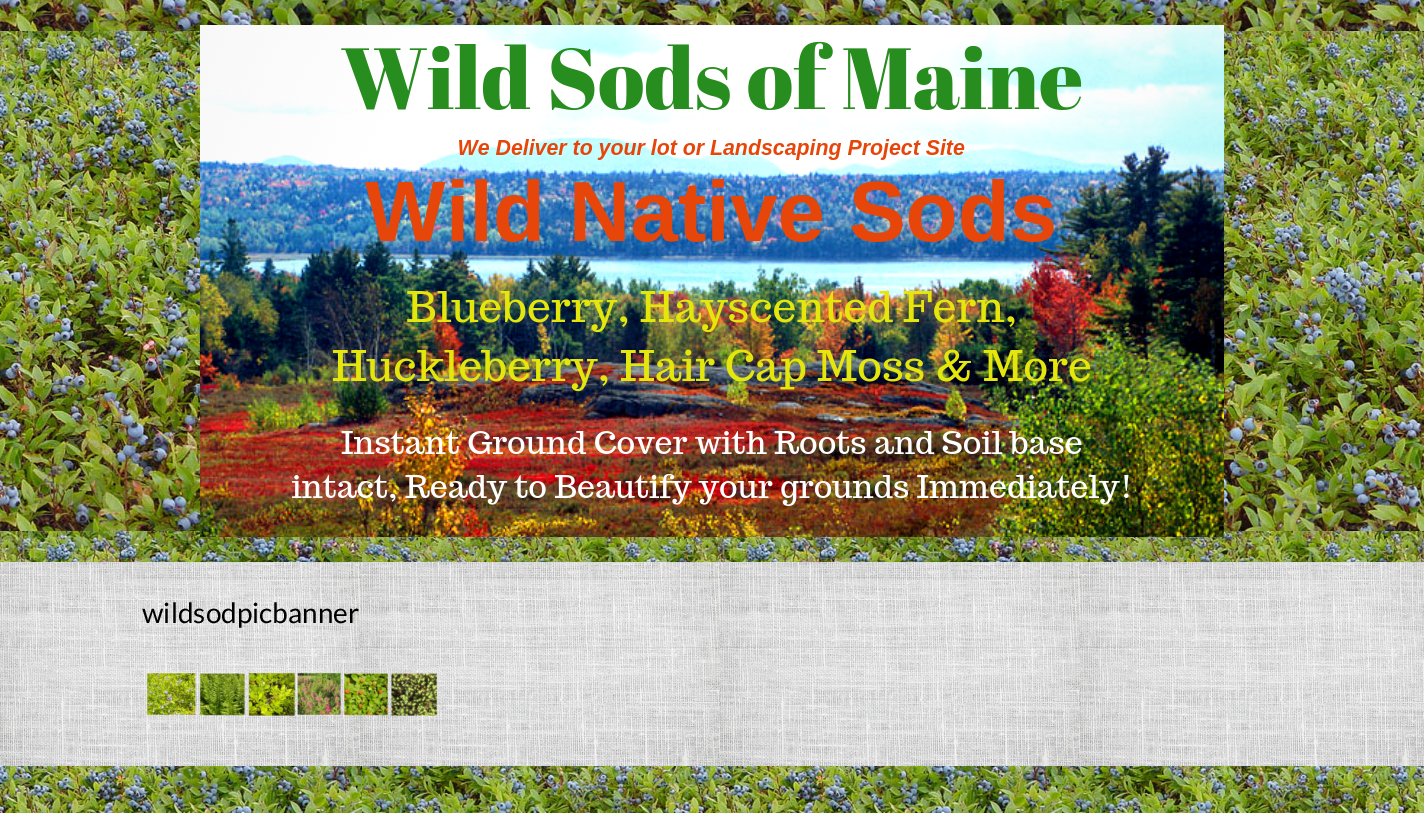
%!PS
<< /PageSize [1424 813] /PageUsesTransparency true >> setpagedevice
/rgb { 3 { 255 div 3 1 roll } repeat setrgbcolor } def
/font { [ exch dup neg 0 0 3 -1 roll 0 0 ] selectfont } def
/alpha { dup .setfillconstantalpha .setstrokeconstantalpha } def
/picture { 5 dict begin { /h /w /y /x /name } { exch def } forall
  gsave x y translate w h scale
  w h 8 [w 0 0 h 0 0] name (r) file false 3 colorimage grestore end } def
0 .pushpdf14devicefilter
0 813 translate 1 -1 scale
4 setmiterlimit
255 255 255 rgb
0 0 1424 813 rectfill
(img/1.rgb) 0 0 1424 562 picture
(img/2.rgb) 200 25 1024 512 picture
(img/3.rgb) 0 562 1424 204 picture
0.05 alpha
0 0 0 rgb
142 577 1140 1 rectfill
142 647 1140 1 rectfill
1 alpha
(img/4.rgb) 142 668 300 52 picture
(img/5.rgb) 0 766 1424 47 picture
/Lato-Regular 28 font
142 623 moveto (wildsodpicbanner) show
.poppdf14devicefilter showpage
